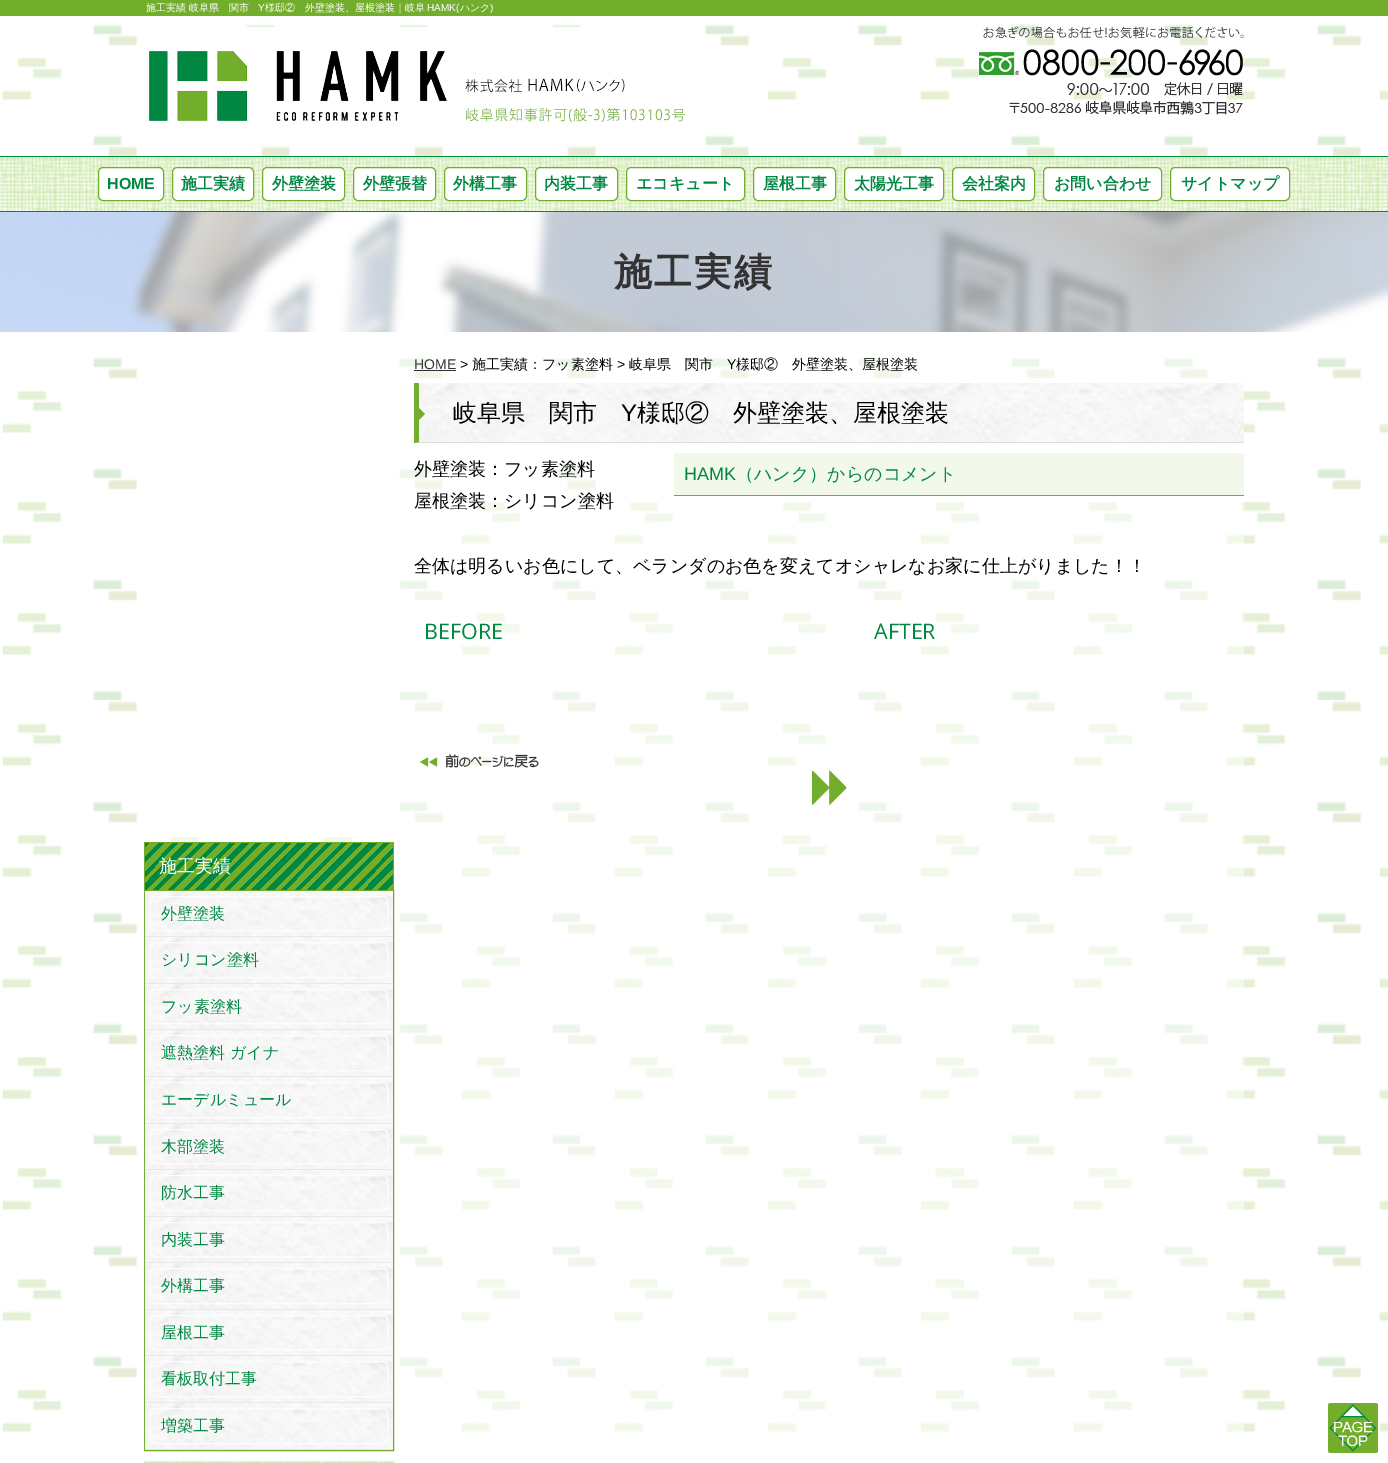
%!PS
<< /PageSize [1388 1463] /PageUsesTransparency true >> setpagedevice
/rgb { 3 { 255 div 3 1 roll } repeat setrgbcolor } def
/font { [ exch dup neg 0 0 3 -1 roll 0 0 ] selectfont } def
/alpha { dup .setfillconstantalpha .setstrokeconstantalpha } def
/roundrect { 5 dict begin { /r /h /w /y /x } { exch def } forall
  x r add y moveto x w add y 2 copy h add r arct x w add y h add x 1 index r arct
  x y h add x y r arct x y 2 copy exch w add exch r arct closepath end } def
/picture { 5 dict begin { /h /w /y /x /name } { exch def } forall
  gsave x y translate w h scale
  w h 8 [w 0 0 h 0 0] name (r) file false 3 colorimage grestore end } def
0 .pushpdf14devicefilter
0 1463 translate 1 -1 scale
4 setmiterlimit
255 255 255 rgb
0 0 1388 1463 rectfill
(img/1.rgb) 2 24 1386 1408 picture
114 174 44 rgb
0 0 1388 16 rectfill
(img/2.rgb) 149 27 536 118 picture
(img/3.rgb) 979 26 265 89 picture
(img/4.rgb) 0 157 1388 54 picture
0 136 66 rgb
0 156 1388 1 rectfill
0 211 1388 1 rectfill
255 255 255 rgb
98.5 167.5 65 33 4.5 roundrect gsave fill grestore
114 174 44 rgb
stroke
255 255 255 rgb
172.5 167.5 81 33 4.5 roundrect gsave fill grestore
114 174 44 rgb
stroke
255 255 255 rgb
262.5 167.5 82 33 4.5 roundrect gsave fill grestore
114 174 44 rgb
stroke
255 255 255 rgb
353.5 167.5 82 33 4.5 roundrect gsave fill grestore
114 174 44 rgb
stroke
255 255 255 rgb
444.5 167.5 82 33 4.5 roundrect gsave fill grestore
114 174 44 rgb
stroke
255 255 255 rgb
535.5 167.5 82 33 4.5 roundrect gsave fill grestore
114 174 44 rgb
stroke
255 255 255 rgb
626.5 167.5 118 33 4.5 roundrect gsave fill grestore
114 174 44 rgb
stroke
255 255 255 rgb
753.5 167.5 82 33 4.5 roundrect gsave fill grestore
114 174 44 rgb
stroke
255 255 255 rgb
844.5 167.5 99 33 4.5 roundrect gsave fill grestore
114 174 44 rgb
stroke
255 255 255 rgb
952.5 167.5 82 33 4.5 roundrect gsave fill grestore
114 174 44 rgb
stroke
255 255 255 rgb
1043.5 167.5 118 33 4.5 roundrect gsave fill grestore
114 174 44 rgb
stroke
255 255 255 rgb
1170.5 167.5 119 33 4.5 roundrect gsave fill grestore
114 174 44 rgb
stroke
(img/5.rgb) 0 212 1388 120 picture
0.5 alpha
255 255 255 rgb
155 357 1089 1075 rectfill
1 alpha
51 51 51 rgb
414 370 42 1 rectfill
(img/6.rgb) 414 383 830 60 picture
221 221 221 rgb
1244 443 moveto 414 443 lineto 419 442 lineto 1244 442 lineto closepath fill
114 174 44 rgb
414 443 moveto 414 383 lineto 419 383 lineto 419 442 lineto closepath fill
419 420 moveto 419 408 lineto 425 414 lineto closepath fill
242 248 234 rgb
674 453 570 42 rectfill
114 174 44 rgb
674 495 570 1 rectfill
(img/7.rgb) 812 770 35 35 picture
(img/8.rgb) 420 754 119 14 picture
[
  [246 357 44 22 255 255 255]
  [155 391 213 42 255 255 255]
  [246 468 44 22 255 255 255]
  [155 502 213 34 255 255 255]
  [155 536 183 8 255 255 255]
  [170 579 182 35 255 255 255]
  [155 614 213 39 255 255 255]
  [155 653 183 39 255 255 255]
  [170 692 182 38 255 255 255]
  [155 730 213 36 255 255 255]
  [170 801 182 36 255 255 255]
] { aload pop rgb rectfill } forall
gsave 145 843 moveto 393 843 lineto 393 890 lineto 145 890 lineto closepath clip newpath
<< /ShadingType 2 /ColorSpace /DeviceRGB /Coords [343 940 194 792] /Extend [true true] /Function << /FunctionType 3 /Domain [0 1] /Functions [<< /FunctionType 2 /Domain [0 1] /C0 [0.447 0.682 0.173] /C1 [0.447 0.682 0.173] /N 1 >> << /FunctionType 2 /Domain [0 1] /C0 [0 0.533 0.259] /C1 [0 0.533 0.259] /N 1 >> << /FunctionType 2 /Domain [0 1] /C0 [0.447 0.682 0.173] /C1 [0.447 0.682 0.173] /N 1 >> << /FunctionType 2 /Domain [0 1] /C0 [0 0.533 0.259] /C1 [0 0.533 0.259] /N 1 >> << /FunctionType 2 /Domain [0 1] /C0 [0.447 0.682 0.173] /C1 [0.447 0.682 0.173] /N 1 >> << /FunctionType 2 /Domain [0 1] /C0 [0 0.533 0.259] /C1 [0 0.533 0.259] /N 1 >> << /FunctionType 2 /Domain [0 1] /C0 [0.447 0.682 0.173] /C1 [0.447 0.682 0.173] /N 1 >> << /FunctionType 2 /Domain [0 1] /C0 [0 0.533 0.259] /C1 [0 0.533 0.259] /N 1 >> << /FunctionType 2 /Domain [0 1] /C0 [0.447 0.682 0.173] /C1 [0.447 0.682 0.173] /N 1 >> << /FunctionType 2 /Domain [0 1] /C0 [0 0.533 0.259] /C1 [0 0.533 0.259] /N 1 >> << /FunctionType 2 /Domain [0 1] /C0 [0.447 0.682 0.173] /C1 [0.447 0.682 0.173] /N 1 >> << /FunctionType 2 /Domain [0 1] /C0 [0 0.533 0.259] /C1 [0 0.533 0.259] /N 1 >> << /FunctionType 2 /Domain [0 1] /C0 [0.447 0.682 0.173] /C1 [0.447 0.682 0.173] /N 1 >> << /FunctionType 2 /Domain [0 1] /C0 [0 0.533 0.259] /C1 [0 0.533 0.259] /N 1 >> << /FunctionType 2 /Domain [0 1] /C0 [0.447 0.682 0.173] /C1 [0.447 0.682 0.173] /N 1 >> << /FunctionType 2 /Domain [0 1] /C0 [0 0.533 0.259] /C1 [0 0.533 0.259] /N 1 >> << /FunctionType 2 /Domain [0 1] /C0 [0.447 0.682 0.173] /C1 [0.447 0.682 0.173] /N 1 >> << /FunctionType 2 /Domain [0 1] /C0 [0 0.533 0.259] /C1 [0 0.533 0.259] /N 1 >> << /FunctionType 2 /Domain [0 1] /C0 [0.447 0.682 0.173] /C1 [0.447 0.682 0.173] /N 1 >> << /FunctionType 2 /Domain [0 1] /C0 [0 0.533 0.259] /C1 [0 0.533 0.259] /N 1 >> << /FunctionType 2 /Domain [0 1] /C0 [0.447 0.682 0.173] /C1 [0.447 0.682 0.173] /N 1 >> << /FunctionType 2 /Domain [0 1] /C0 [0 0.533 0.259] /C1 [0 0.533 0.259] /N 1 >> << /FunctionType 2 /Domain [0 1] /C0 [0.447 0.682 0.173] /C1 [0.447 0.682 0.173] /N 1 >> << /FunctionType 2 /Domain [0 1] /C0 [0 0.533 0.259] /C1 [0 0.533 0.259] /N 1 >> << /FunctionType 2 /Domain [0 1] /C0 [0.447 0.682 0.173] /C1 [0.447 0.682 0.173] /N 1 >> << /FunctionType 2 /Domain [0 1] /C0 [0 0.533 0.259] /C1 [0 0.533 0.259] /N 1 >> << /FunctionType 2 /Domain [0 1] /C0 [0.447 0.682 0.173] /C1 [0.447 0.682 0.173] /N 1 >> << /FunctionType 2 /Domain [0 1] /C0 [0 0.533 0.259] /C1 [0 0.533 0.259] /N 1 >> << /FunctionType 2 /Domain [0 1] /C0 [0.447 0.682 0.173] /C1 [0.447 0.682 0.173] /N 1 >> << /FunctionType 2 /Domain [0 1] /C0 [0 0.533 0.259] /C1 [0 0.533 0.259] /N 1 >> << /FunctionType 2 /Domain [0 1] /C0 [0.447 0.682 0.173] /C1 [0.447 0.682 0.173] /N 1 >> << /FunctionType 2 /Domain [0 1] /C0 [0 0.533 0.259] /C1 [0 0.533 0.259] /N 1 >> << /FunctionType 2 /Domain [0 1] /C0 [0.447 0.682 0.173] /C1 [0.447 0.682 0.173] /N 1 >> << /FunctionType 2 /Domain [0 1] /C0 [0 0.533 0.259] /C1 [0 0.533 0.259] /N 1 >> << /FunctionType 2 /Domain [0 1] /C0 [0.447 0.682 0.173] /C1 [0.447 0.682 0.173] /N 1 >> << /FunctionType 2 /Domain [0 1] /C0 [0 0.533 0.259] /C1 [0 0.533 0.259] /N 1 >> << /FunctionType 2 /Domain [0 1] /C0 [0.447 0.682 0.173] /C1 [0.447 0.682 0.173] /N 1 >> << /FunctionType 2 /Domain [0 1] /C0 [0 0.533 0.259] /C1 [0 0.533 0.259] /N 1 >> << /FunctionType 2 /Domain [0 1] /C0 [0.447 0.682 0.173] /C1 [0.447 0.682 0.173] /N 1 >> << /FunctionType 2 /Domain [0 1] /C0 [0 0.533 0.259] /C1 [0 0.533 0.259] /N 1 >> << /FunctionType 2 /Domain [0 1] /C0 [0.447 0.682 0.173] /C1 [0.447 0.682 0.173] /N 1 >> << /FunctionType 2 /Domain [0 1] /C0 [0 0.533 0.259] /C1 [0 0.533 0.259] /N 1 >>] /Bounds [0.02 0.05 0.07 0.1 0.12 0.14 0.17 0.19 0.21 0.24 0.26 0.29 0.31 0.33 0.36 0.38 0.4 0.43 0.45 0.48 0.5 0.52 0.55 0.57 0.6 0.62 0.64 0.67 0.69 0.71 0.74 0.76 0.79 0.81 0.83 0.86 0.88 0.9 0.93 0.95 0.98] /Encode [0 1 0 1 0 1 0 1 0 1 0 1 0 1 0 1 0 1 0 1 0 1 0 1 0 1 0 1 0 1 0 1 0 1 0 1 0 1 0 1 0 1 0 1 0 1 0 1 0 1 0 1 0 1 0 1 0 1 0 1 0 1 0 1 0 1 0 1 0 1 0 1 0 1 0 1 0 1 0 1 0 1 0 1] >> >> shfill grestore
[
  [144 842 250 1 114 174 44]
  [393 842 1 48 114 174 44]
  [144 842 1 48 114 174 44]
] { aload pop rgb rectfill } forall
144.5 890.5 249 560 rectstroke
(img/9.rgb) 145 891 248 45 picture
231 232 232 rgb
145 936 248 1 rectfill
253 253 253 rgb
150.5 896.5 237 34 4.5 roundrect stroke
(img/10.rgb) 145 937 248 46 picture
231 232 232 rgb
145 983 248 1 rectfill
253 253 253 rgb
150.5 942.5 237 35 4.5 roundrect stroke
(img/9.rgb) 145 984 248 45 picture
231 232 232 rgb
145 1029 248 1 rectfill
253 253 253 rgb
150.5 989.5 237 34 4.5 roundrect stroke
(img/10.rgb) 145 1030 248 46 picture
231 232 232 rgb
145 1076 248 1 rectfill
253 253 253 rgb
150.5 1035.5 237 35 4.5 roundrect stroke
(img/10.rgb) 145 1077 248 46 picture
231 232 232 rgb
145 1123 248 1 rectfill
253 253 253 rgb
150.5 1082.5 237 35 4.5 roundrect stroke
(img/9.rgb) 145 1124 248 45 picture
231 232 232 rgb
145 1169 248 1 rectfill
253 253 253 rgb
150.5 1129.5 237 34 4.5 roundrect stroke
(img/10.rgb) 145 1170 248 46 picture
231 232 232 rgb
145 1216 248 1 rectfill
253 253 253 rgb
150.5 1175.5 237 35 4.5 roundrect stroke
(img/9.rgb) 145 1217 248 45 picture
231 232 232 rgb
145 1262 248 1 rectfill
253 253 253 rgb
150.5 1222.5 237 34 4.5 roundrect stroke
(img/10.rgb) 145 1263 248 46 picture
231 232 232 rgb
145 1309 248 1 rectfill
253 253 253 rgb
150.5 1268.5 237 35 4.5 roundrect stroke
(img/9.rgb) 145 1310 248 45 picture
231 232 232 rgb
145 1355 248 1 rectfill
253 253 253 rgb
150.5 1315.5 237 34 4.5 roundrect stroke
(img/10.rgb) 145 1356 248 46 picture
231 232 232 rgb
145 1402 248 1 rectfill
253 253 253 rgb
150.5 1361.5 237 35 4.5 roundrect stroke
(img/10.rgb) 145 1403 248 46 picture
231 232 232 rgb
145 1449 248 1 rectfill
253 253 253 rgb
150.5 1408.5 237 35 4.5 roundrect stroke
(img/11.rgb) 144 1461 250 2 picture
(img/12.rgb) 1328 1403 50 50 picture
/WenQuanYiZenHei-Medium 10 font
255 255 255 rgb
146 11 moveto (施工実績 岐阜県　関市) show
/LiberationSans-Regular 10 font
258 11 moveto (Y) show
/WenQuanYiZenHei-Medium 10 font
265 11 moveto (様邸②　外壁塗装、屋根塗装｜岐阜) show
/LiberationSans-Regular 10 font
427 11 moveto (HAMK\() show
/WenQuanYiZenHei-Medium 10 font
460 11 moveto (ハンク) show
/LiberationSans-Regular 10 font
490 11 moveto (\)) show
/LiberationSans-Bold 16 font
0 136 66 rgb
107 189 moveto (HOME) show
/WenQuanYiZenHei-Bold 16 font
[
  [(施工実績) 181 189]
  [(外壁塗装) 272 189]
  [(外壁張替) 363 189]
  [(外構工事) 453 189]
  [(内装工事) 544 189]
  [(エコキュート) 636 189]
  [(屋根工事) 763 189]
  [(太陽光工事) 854 189]
  [(会社案内) 962 189]
  [(お問い合わせ) 1054 189]
  [(サイトマップ) 1181 189]
] { aload pop moveto show } forall
/WenQuanYiZenHei-Bold 38 font
51 51 51 rgb
614 285 moveto 2 0 (施工実績) ashow
/LiberationSans-Regular 14 font
414 369 moveto (HOME) show
0 0 0 rgb
460 369 moveto (>) show
/WenQuanYiZenHei-Medium 14 font
472 369 moveto (施工実績：フッ素塗料) show
/LiberationSans-Regular 14 font
617 369 moveto (>) show
/WenQuanYiZenHei-Medium 14 font
629 369 moveto (岐阜県　関市) show
/LiberationSans-Regular 14 font
727 369 moveto (Y) show
/WenQuanYiZenHei-Medium 14 font
736 369 moveto (様邸②　外壁塗装、屋根塗装) show
/WenQuanYiZenHei-Medium 24 font
453 421 moveto (岐阜県　関市) show
/LiberationSans-Regular 24 font
621 421 moveto (Y) show
/WenQuanYiZenHei-Medium 24 font
637 421 moveto (様邸②　外壁塗装、屋根塗装) show
/WenQuanYiZenHei-Medium 18 font
[
  [(外壁塗装：フッ素塗料) 414 475]
  [(屋根塗装：シリコン塗料) 414 507]
  [(全体は明るいお色にして、ベランダのお色を変えてオシャレなお家に仕上がりました！！) 414 572]
] { aload pop moveto show } forall
/LiberationSans-Regular 18 font
0 136 66 rgb
684 480 moveto (HAMK) show
/WenQuanYiZenHei-Medium 18 font
736 480 moveto (（ハンク）からのコメント) show
/OpenSans-Regular 21.5 font
424 639 moveto (BEFORE) show
874 639 moveto (AFTER) show
/WenQuanYiZenHei-Medium 18 font
255 255 255 rgb
159 872 moveto (施工実績) show
/WenQuanYiZenHei-Medium 16 font
0 136 66 rgb
[
  [(外壁塗装) 161 919]
  [(シリコン塗料) 161 965]
  [(フッ素塗料) 161 1012]
  [(遮熱塗料 ガイナ) 161 1058]
  [(エーデルミュール) 161 1105]
  [(木部塗装) 161 1152]
  [(防水工事) 161 1198]
  [(内装工事) 161 1245]
  [(外構工事) 161 1291]
  [(屋根工事) 161 1338]
  [(看板取付工事) 161 1384]
  [(増築工事) 161 1431]
] { aload pop moveto show } forall
.poppdf14devicefilter showpage
